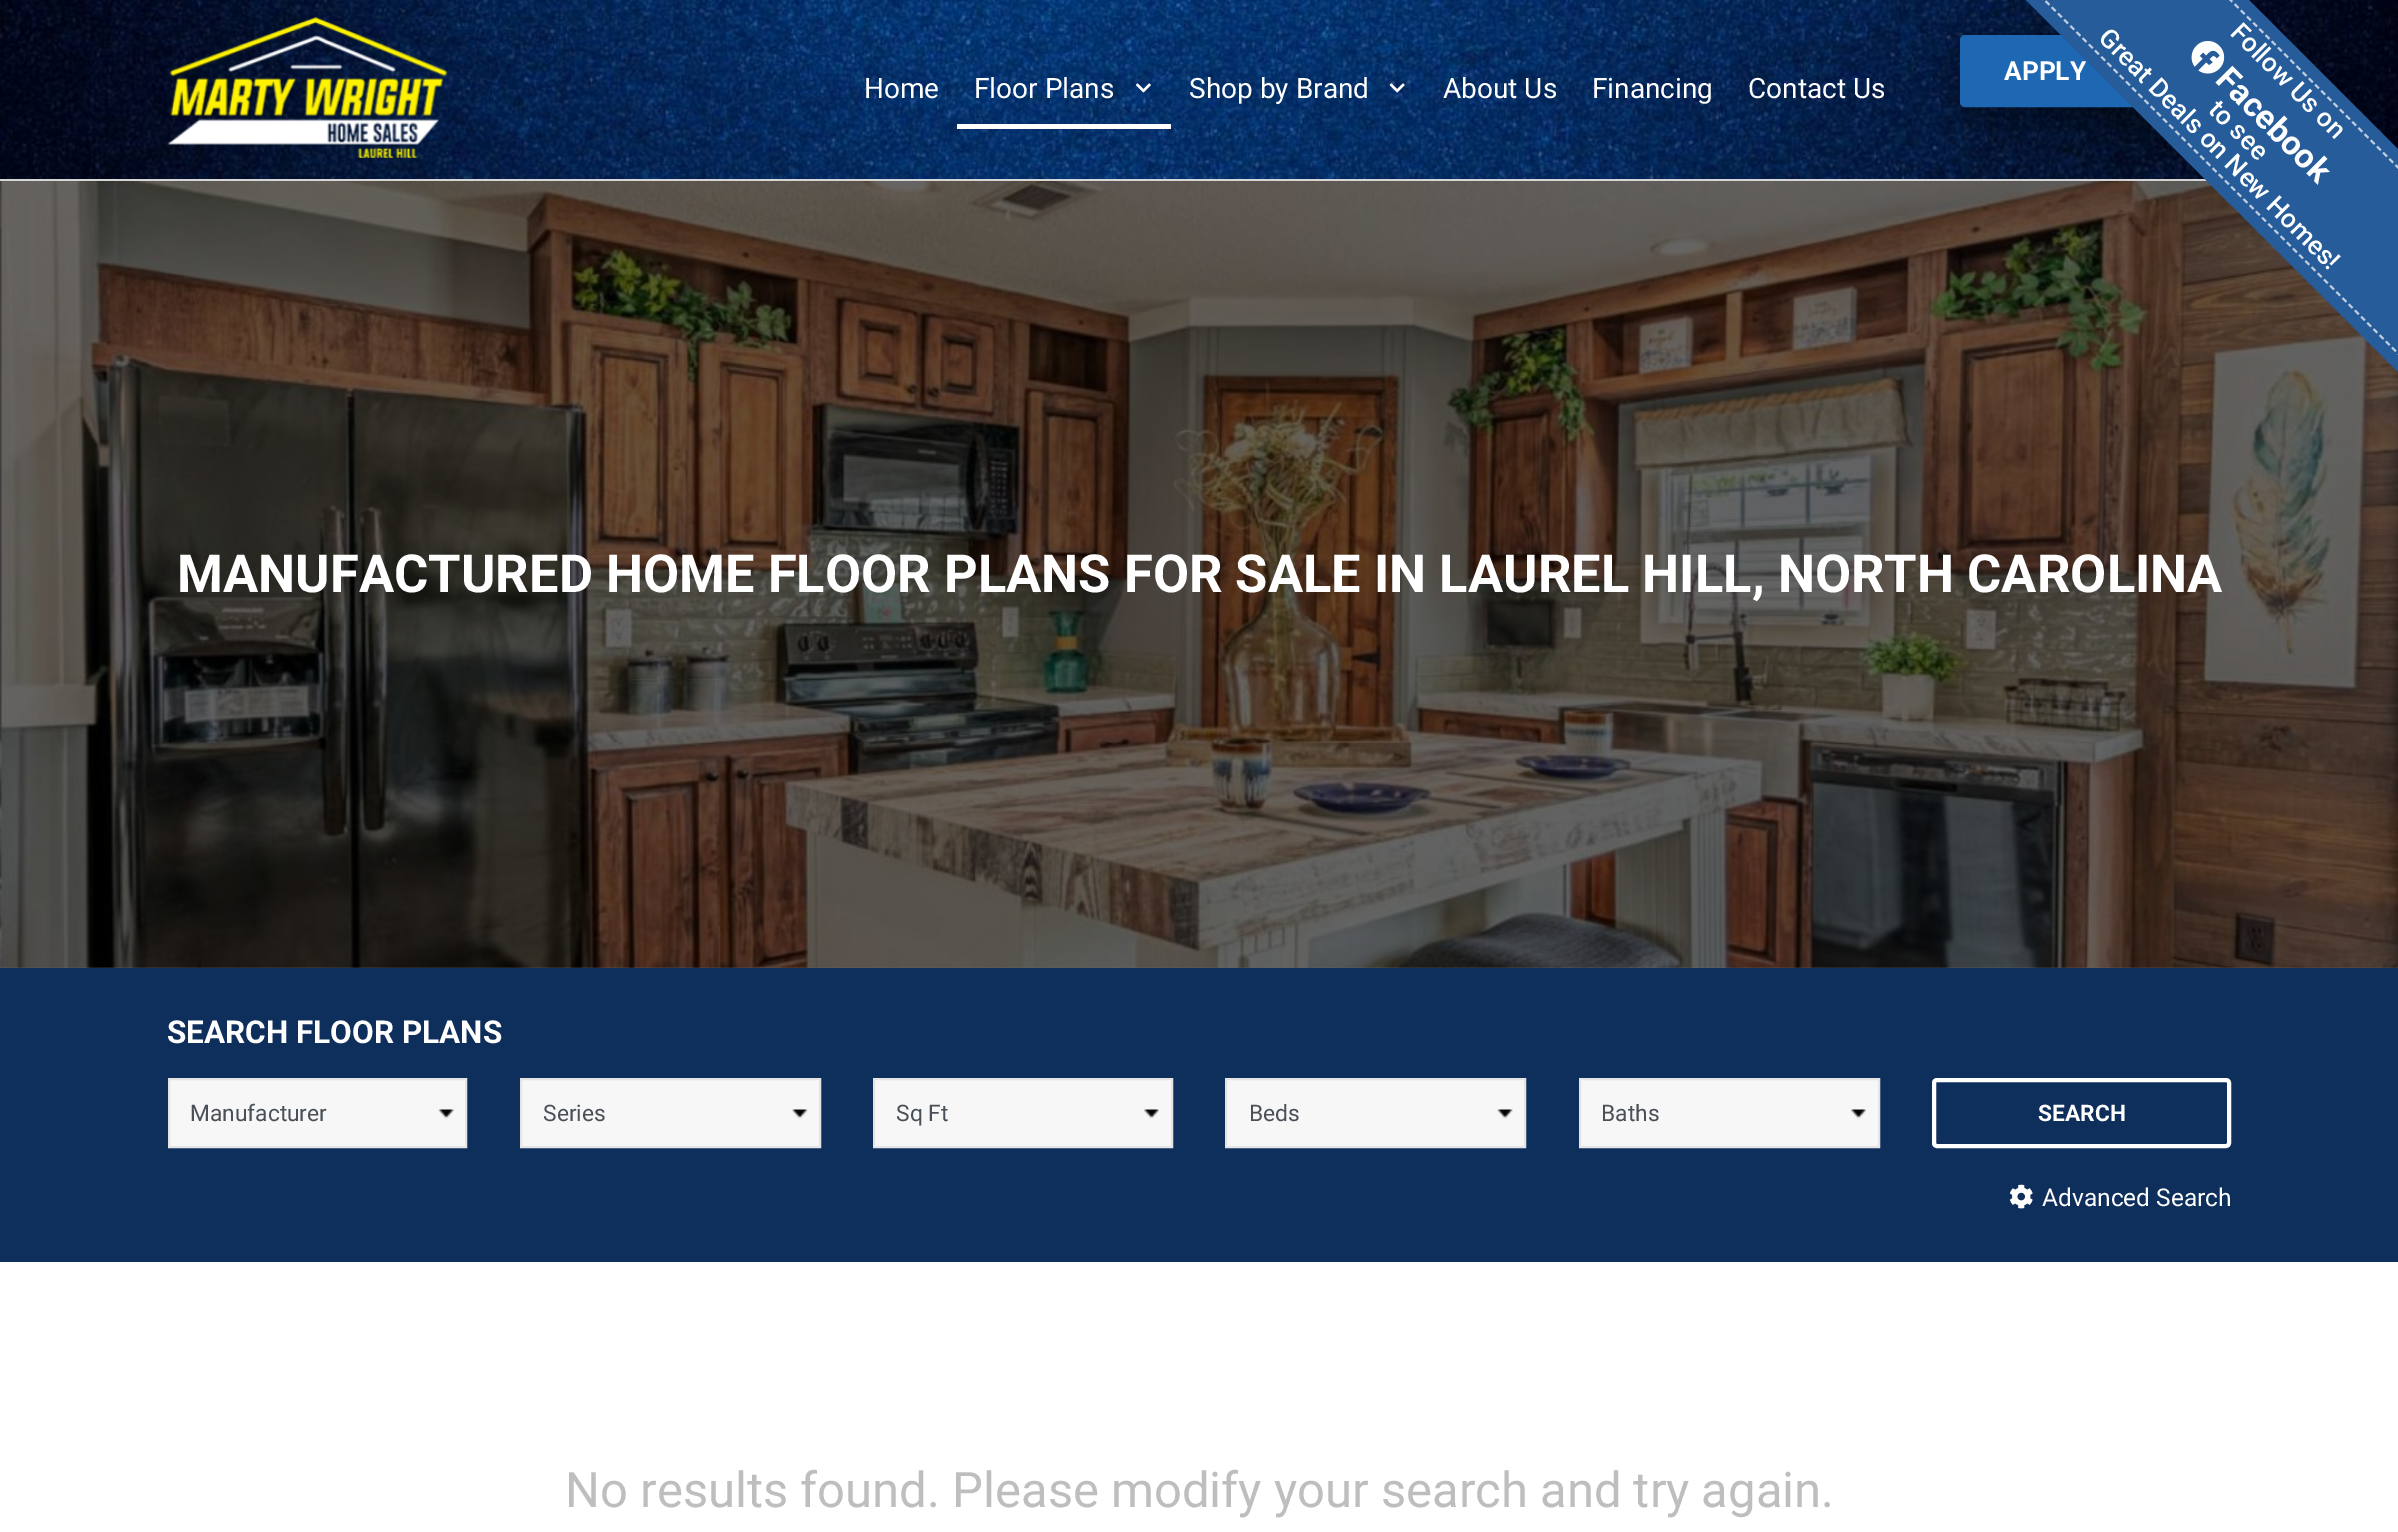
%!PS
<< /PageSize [2398 1532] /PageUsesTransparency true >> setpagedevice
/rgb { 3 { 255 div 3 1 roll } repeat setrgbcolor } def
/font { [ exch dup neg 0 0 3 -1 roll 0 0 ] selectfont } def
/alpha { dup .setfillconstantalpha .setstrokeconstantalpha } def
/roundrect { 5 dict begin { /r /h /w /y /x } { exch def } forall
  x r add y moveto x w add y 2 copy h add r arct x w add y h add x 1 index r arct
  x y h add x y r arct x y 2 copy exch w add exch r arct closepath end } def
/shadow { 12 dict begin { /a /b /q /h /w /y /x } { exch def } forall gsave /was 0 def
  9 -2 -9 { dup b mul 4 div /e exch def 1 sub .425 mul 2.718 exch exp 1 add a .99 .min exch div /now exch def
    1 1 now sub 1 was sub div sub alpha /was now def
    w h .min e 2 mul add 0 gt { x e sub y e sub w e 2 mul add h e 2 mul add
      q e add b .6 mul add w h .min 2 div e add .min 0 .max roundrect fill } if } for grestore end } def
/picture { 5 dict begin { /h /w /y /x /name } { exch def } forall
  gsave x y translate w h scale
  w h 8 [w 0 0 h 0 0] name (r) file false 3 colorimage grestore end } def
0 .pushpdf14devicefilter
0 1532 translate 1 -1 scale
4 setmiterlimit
255 255 255 rgb
0 0 2398 1532 rectfill
(img/1.rgb) 0 0 2398 179 picture
214 214 214 rgb
0 179 2207 2 rectfill
(img/2.rgb) 167 17 280 141 picture
(img/3.rgb) 1136 83 15 10 picture
255 255 255 rgb
957 124 214 5 rectfill
(img/4.rgb) 1389 83 16 10 picture
(img/6.rgb) 0 181 2398 787 picture
0 0 0 rgb
1960 53 236 71 5 26 0.5 shadow
30 103 178 rgb
1961 36 234 70 4 roundrect gsave fill grestore
2 setlinewidth
stroke
14 46 91 rgb
0 968 2398 294 rectfill
247 247 247 rgb
170 1080 295 66 rectfill
(img/7.rgb) 438 1109 16 10 picture
229 229 229 rgb
169 1079 297 68 rectstroke
247 247 247 rgb
522 1080 297 66 rectfill
(img/8.rgb) 792 1109 16 10 picture
229 229 229 rgb
521 1079 299 68 rectstroke
247 247 247 rgb
875 1080 296 66 rectfill
(img/9.rgb) 1144 1109 15 10 picture
229 229 229 rgb
874 1079 298 68 rectstroke
247 247 247 rgb
1227 1080 297 66 rectfill
(img/10.rgb) 1497 1109 16 10 picture
229 229 229 rgb
1226 1079 299 68 rectstroke
247 247 247 rgb
1581 1080 297 66 rectfill
(img/9.rgb) 1851 1109 15 10 picture
229 229 229 rgb
1580 1079 299 68 rectstroke
255 255 255 rgb
4 setlinewidth
1934 1080 295 66 3 roundrect stroke
(img/11.rgb) 2009 1184 24 25 picture
/Roboto-Regular 28 font
[
  [(Home) 864 98]
  [(Floor Plans) 974 98]
  [(Shop by Brand) 1189 98]
  [(About Us) 1443 98]
  [(Financing) 1592 98]
  [(Contact Us) 1748 98]
] { aload pop moveto show } forall
/Roboto-Bold 26.25 font
2004 80 moveto (APPLY) show
37 92 153 rgb
2065 -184 moveto 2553 304 lineto 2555 306 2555 309 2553 311 curveto 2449 415 lineto 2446 417 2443 417 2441 415 curveto 1954 -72 lineto 1951 -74 1951 -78 1954 -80 curveto 2058 -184 lineto 2060 -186 2063 -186 2065 -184 curveto closepath fill
/Roboto-Medium 26.25 font
255 255 255 rgb
gsave 2229 34 translate 45 rotate 0 0 moveto (Follow Us on) show grestore
(img/5.rgb) 2191 41 34 33 picture
/Roboto-Bold 33.5 font
gsave 2214 81 translate 45 rotate 0 0 moveto (Facebook) show grestore
/Roboto-Medium 26.25 font
gsave 2207 111 translate 45 rotate 0 0 moveto (to see) show grestore
gsave 2097 39 translate 45 rotate 0 0 moveto (Great Deals on New Homes!) show grestore
190 206 224 rgb
1.8 setlinewidth
[5.25 3.5] 0 setdash
2061.5 -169 moveto 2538 307.5 lineto 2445 400.5 lineto 1968.5 -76 lineto closepath stroke
/Roboto-Bold 52.5 font
255 255 255 rgb
177 592 moveto (MANUFACTURED HOME FLOOR PLANS FOR SALE IN LAUREL HILL, NORTH CAROLINA) show
/Roboto-Bold 31.5 font
167 1043 moveto (SEARCH FLOOR PLANS) show
/Roboto-Regular 22.75 font
73 80 87 rgb
[
  [(Manufacturer) 190 1121]
  [(Series) 543 1121]
  [(Sq Ft) 896 1121]
  [(Beds) 1249 1121]
  [(Baths) 1601 1121]
] { aload pop moveto show } forall
/Roboto-Bold 22.75 font
255 255 255 rgb
2038 1121 moveto (SEARCH) show
/Roboto-Regular 24.5 font
2042 1206 moveto (Advanced Search) show
/Roboto-Regular 49 font
190 190 190 rgb
565 1507 moveto (No results found. Please modify your search and try again.) show
.poppdf14devicefilter showpage
